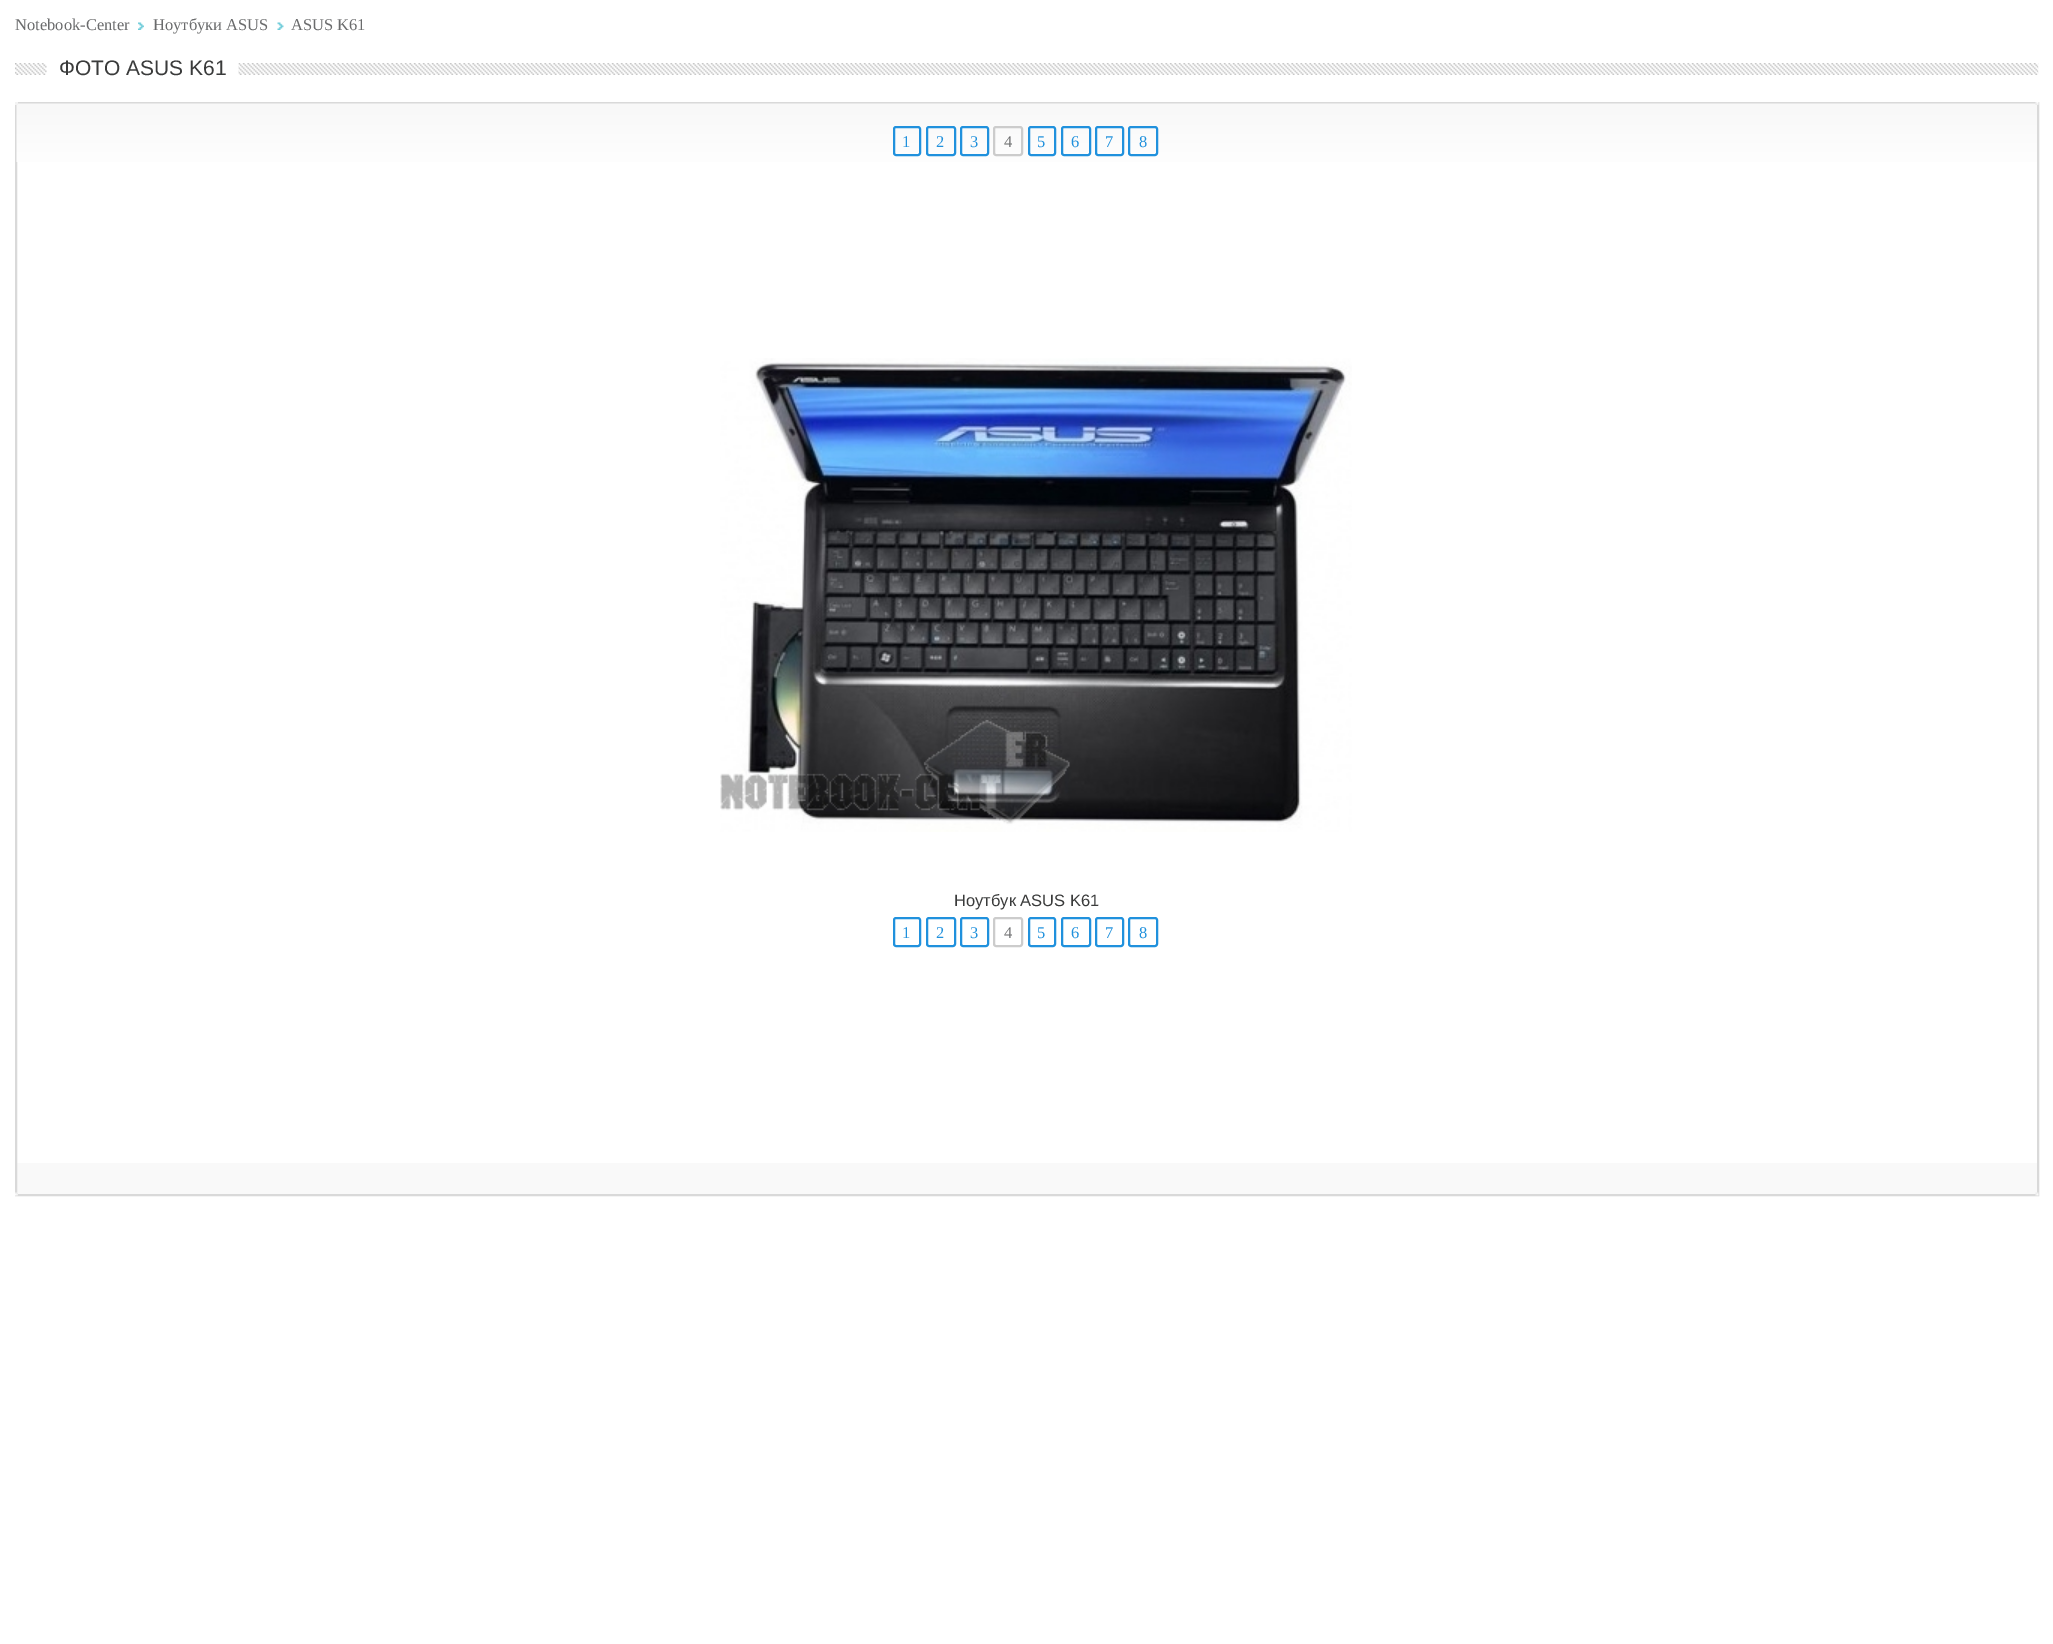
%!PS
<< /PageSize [2053 1644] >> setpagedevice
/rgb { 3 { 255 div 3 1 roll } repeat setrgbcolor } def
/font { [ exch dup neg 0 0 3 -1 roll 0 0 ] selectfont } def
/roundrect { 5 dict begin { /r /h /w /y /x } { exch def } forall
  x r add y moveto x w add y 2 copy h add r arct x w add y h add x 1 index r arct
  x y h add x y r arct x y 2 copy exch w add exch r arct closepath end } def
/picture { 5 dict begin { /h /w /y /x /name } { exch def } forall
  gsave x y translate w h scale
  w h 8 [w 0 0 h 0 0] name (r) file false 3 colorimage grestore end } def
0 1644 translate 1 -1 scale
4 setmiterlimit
255 255 255 rgb
0 0 2053 1644 rectfill
(img/1.rgb) 138 22 6 8 picture
(img/2.rgb) 277 22 7 8 picture
(img/3.rgb) 15 63 32 12 picture
(img/4.rgb) 238 63 1801 12 picture
249 249 249 rgb
17 1163 2020 31 rectfill
217 217 217 rgb
2 setlinewidth
16 103 2022 1092 rectstroke
(img/6.rgb) 16 103 2021 59 picture
243 243 243 rgb
15 102 3 3 rectfill
(img/5.rgb) 2035 102 4 3 picture
32 145 221 rgb
894 127 26 28 2 roundrect stroke
927 127 28 28 2 roundrect stroke
961 127 27 28 2 roundrect stroke
204 204 204 rgb
994 127 28 28 2 roundrect stroke
32 145 221 rgb
1029 127 26 28 2 roundrect stroke
1062 127 28 28 2 roundrect stroke
1096 127 27 28 2 roundrect stroke
1129 127 28 28 2 roundrect stroke
(img/7.rgb) 720 358 632 474 picture
894 918 26 28 2 roundrect stroke
927 918 28 28 2 roundrect stroke
961 918 27 28 2 roundrect stroke
204 204 204 rgb
994 918 28 28 2 roundrect stroke
32 145 221 rgb
1029 918 26 28 2 roundrect stroke
1062 918 28 28 2 roundrect stroke
1096 918 27 28 2 roundrect stroke
1129 918 28 28 2 roundrect stroke
(img/8.rgb) 15 1192 3 4 picture
(img/9.rgb) 2035 1192 4 4 picture
/LiberationSerif-Regular 16.5 font
106 107 108 rgb
[
  [(Notebook-Center) 15 30]
  [(Ноутбуки ASUS) 153 30]
  [(ASUS K61) 291 30]
] { aload pop moveto show } forall
/LiberationSans-Regular 21 font
58 59 59 rgb
59 75 moveto (ФОТО ASUS K61) show
/LiberationSerif-Regular 16.5 font
32 145 221 rgb
[
  [(1) 902 147]
  [(2) 936 147]
  [(3) 970 147]
] { aload pop moveto show } forall
106 107 108 rgb
1004 147 moveto (4) show
32 145 221 rgb
[
  [(5) 1037 147]
  [(6) 1071 147]
  [(7) 1105 147]
  [(8) 1139 147]
] { aload pop moveto show } forall
/LiberationSans-Regular 16.5 font
58 59 59 rgb
954 906 moveto (Ноутбук ASUS K61) show
/LiberationSerif-Regular 16.5 font
32 145 221 rgb
[
  [(1) 902 938]
  [(2) 936 938]
  [(3) 970 938]
] { aload pop moveto show } forall
106 107 108 rgb
1004 938 moveto (4) show
32 145 221 rgb
[
  [(5) 1037 938]
  [(6) 1071 938]
  [(7) 1105 938]
  [(8) 1139 938]
] { aload pop moveto show } forall
showpage
